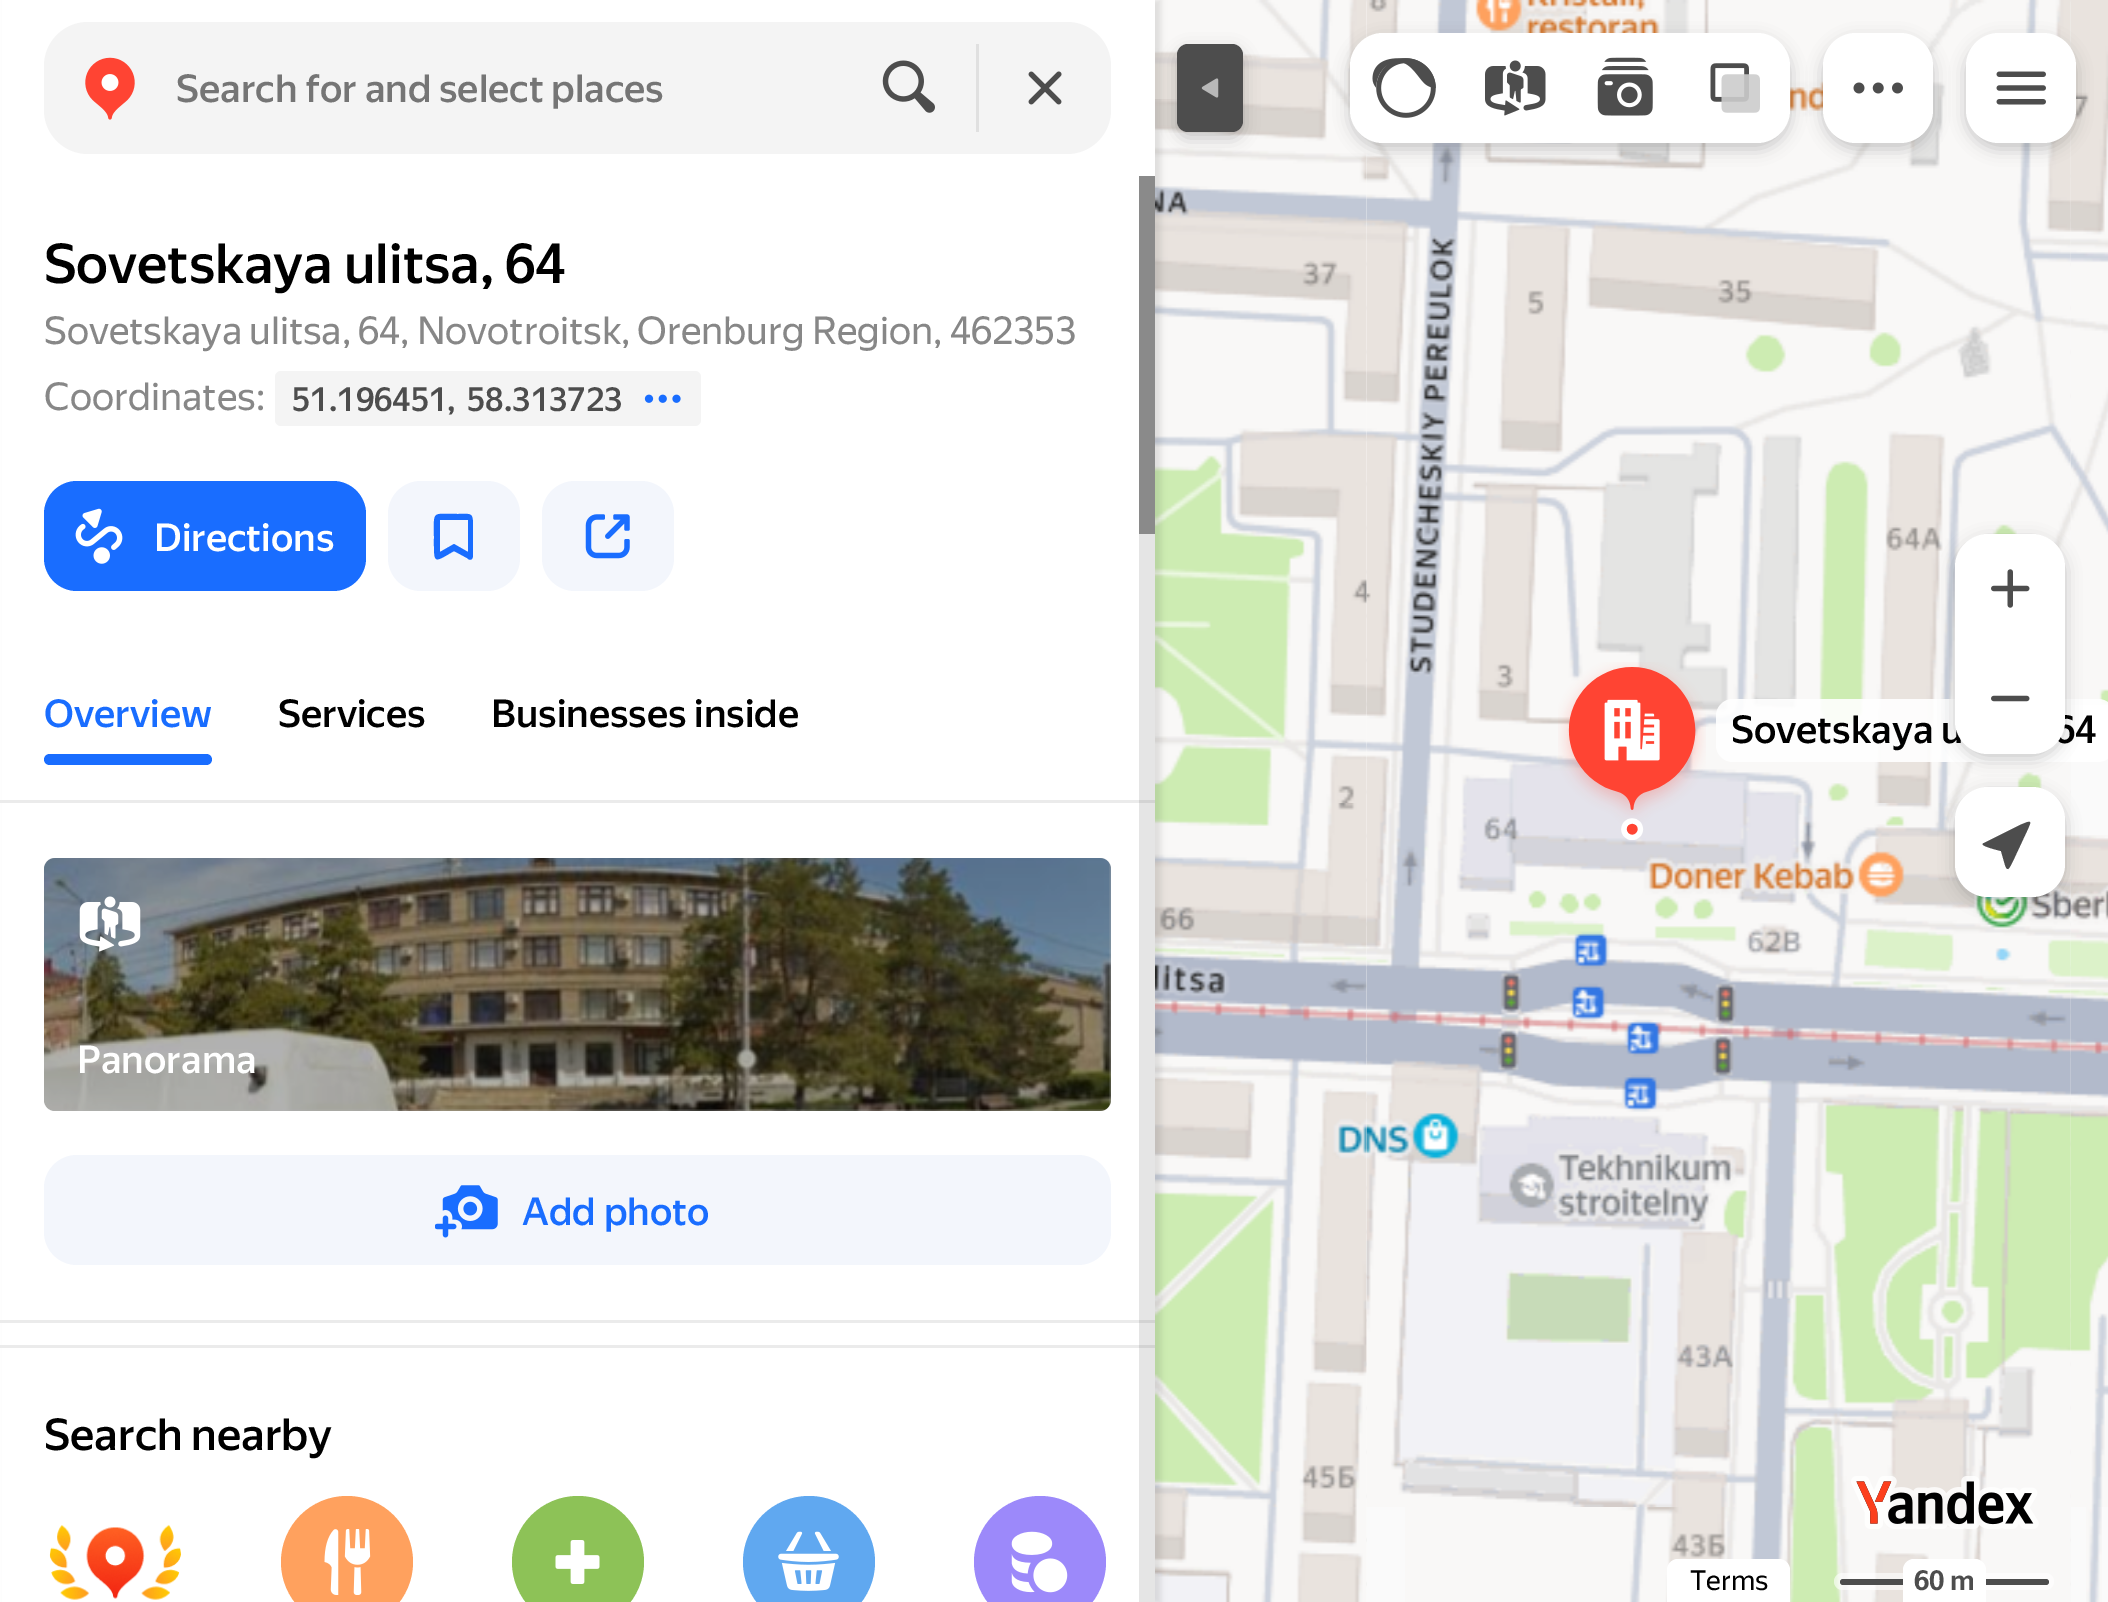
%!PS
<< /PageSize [2108 1602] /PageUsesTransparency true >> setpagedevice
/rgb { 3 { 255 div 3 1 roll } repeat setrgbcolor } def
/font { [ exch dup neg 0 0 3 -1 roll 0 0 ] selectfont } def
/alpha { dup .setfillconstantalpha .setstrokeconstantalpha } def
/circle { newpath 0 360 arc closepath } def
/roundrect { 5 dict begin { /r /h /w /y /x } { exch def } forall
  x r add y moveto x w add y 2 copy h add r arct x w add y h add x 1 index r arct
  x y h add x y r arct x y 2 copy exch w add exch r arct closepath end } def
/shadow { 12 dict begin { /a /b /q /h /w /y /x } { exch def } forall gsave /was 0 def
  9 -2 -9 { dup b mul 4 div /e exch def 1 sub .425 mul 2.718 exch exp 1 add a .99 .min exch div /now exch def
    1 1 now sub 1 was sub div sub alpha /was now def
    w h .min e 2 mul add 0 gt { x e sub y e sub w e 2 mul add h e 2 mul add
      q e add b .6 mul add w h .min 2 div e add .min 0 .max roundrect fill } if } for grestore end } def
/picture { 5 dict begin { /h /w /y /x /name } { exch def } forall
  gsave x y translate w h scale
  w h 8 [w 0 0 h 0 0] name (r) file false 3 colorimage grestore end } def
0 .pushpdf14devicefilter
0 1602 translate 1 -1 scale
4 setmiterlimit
255 255 255 rgb
0 0 2108 1602 rectfill
(img/1.rgb) 1366 0 742 1602 picture
(img/26.rgb) 1155 0 212 99 picture
(img/29.rgb) 1155 99 212 704 picture
(img/32.rgb) 1155 803 212 704 picture
(img/35.rgb) 1155 1507 212 95 picture
0 0 0 rgb
6 0 1155 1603 0 3 0.1 shadow
1177 50 66 88 11 8 0.2 shadow
255 255 255 rgb
2 0 1153 1602 rectfill
244 244 244 rgb
44 22 1067 132 44 roundrect fill
(img/2.rgb) 85 57 50 63 picture
(img/3.rgb) 882 60 53 53 picture
224 224 224 rgb
976 44 3 88 rectfill
(img/4.rgb) 1028 71 34 34 picture
(img/27.rgb) 1366 0 705 99 picture
(img/30.rgb) 1366 99 705 704 picture
0 0 0 rgb
1350 39 440 110 33 8 0.2 shadow
255 255 255 rgb
1383 33 moveto 1460 33 lineto 1460 143 lineto 1383 143 lineto 1365 143 1350 128 1350 110 curveto 1350 66 lineto 1350 48 1365 33 1383 33 curveto closepath fill
(img/5.rgb) 1372 58 64 60 picture
1460 33 220 110 rectfill
(img/6.rgb) 1485 60 61 56 picture
1680 33 moveto 1757 33 lineto 1775 33 1790 48 1790 66 curveto 1790 110 lineto 1790 128 1775 143 1757 143 curveto 1680 143 lineto closepath fill
(img/7.rgb) 1710 63 50 50 picture
(img/8.rgb) 1597 57 56 59 picture
0 0 0 rgb
1823 39 110 110 33 8 0.2 shadow
255 255 255 rgb
1823 33 110 110 33 roundrect fill
(img/9.rgb) 1853 82 50 12 picture
(img/28.rgb) 2071 0 37 99 picture
(img/31.rgb) 2070 99 38 606 picture
0 0 0 rgb
1966 39 110 110 33 8 0.2 shadow
255 255 255 rgb
1966 33 110 110 33 roundrect fill
(img/10.rgb) 1996 71 50 34 picture
0.9 alpha
1716 699 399 63 17 roundrect fill
1 alpha
0 0 0 rgb
1955 539 110 220 33 8 0.2 shadow
255 255 255 rgb
1988 534 moveto 2032 534 lineto 2050 534 2065 549 2065 567 curveto 2065 644 lineto 1955 644 lineto 1955 567 lineto 1955 549 1970 534 1988 534 curveto closepath fill
(img/11.rgb) 1991 569 39 39 picture
(img/33.rgb) 1366 803 705 704 picture
(img/34.rgb) 2070 835 38 672 picture
0 0 0 rgb
1955 792 110 110 33 8 0.2 shadow
255 255 255 rgb
1955 787 110 110 33 roundrect fill
77 77 77 rgb
1984 843 moveto 2020 825 lineto 2032 820 2032 820 2027 831 curveto 2013 861 lineto 2010 866 2008 874 2005 865 curveto 2001 851 lineto 1993 849 1978 845 1984 843 curveto closepath eofill
1177 44 66 88 11 roundrect fill
(img/13.rgb) 1201 78 18 20 picture
244 244 244 rgb
275 371 426 55 6 roundrect fill
(img/14.rgb) 644 394 37 9 picture
25 109 255 rgb
44 481 322 110 33 roundrect fill
(img/15.rgb) 75 508 48 56 picture
243 246 252 rgb
388 481 132 110 33 roundrect fill
25 109 255 rgb
440 520 moveto 440 552 lineto 454 544 lineto 468 552 lineto 468 520 lineto closepath 473 555 moveto 473 560 470 561 467 558 curveto 454 551 lineto 433 563 434 565 434 537 curveto 434 510 431 514 458 514 curveto 471 514 473 512 473 526 curveto closepath eofill
243 246 252 rgb
542 481 132 110 33 roundrect fill
(img/16.rgb) 585 514 45 45 picture
25 109 255 rgb
44 754 168 11 5.5 roundrect fill
235 235 235 rgb
0 800 1155 3 rectfill
0 1320 1155 3 rectfill
(img/17.rgb) 44 858 1067 253 picture
0.3 alpha
0 0 0 rgb
44 858 1067 253 11 roundrect fill
1 alpha
(img/18.rgb) 79 896 62 56 picture
243 246 252 rgb
44 1155 1067 110 33 roundrect fill
(img/19.rgb) 435 1185 63 53 picture
235 235 235 rgb
0 1345 1155 3 rectfill
(img/20.rgb) 49 1524 132 76 picture
255 161 94 rgb
347 1562 66 circle fill
(img/21.rgb) 324 1529 47 66 picture
141 194 87 rgb
578 1562 66 circle fill
(img/22.rgb) 555 1540 45 44 picture
96 168 240 rgb
809 1562 66 circle fill
(img/23.rgb) 778 1531 61 60 picture
156 137 250 rgb
1040 1562 66 circle fill
(img/24.rgb) 1011 1531 57 62 picture
138 138 138 rgb
1139 176 16 358 rectfill
0.1 alpha
0 0 0 rgb
1139 534 16 1068 rectfill
1 alpha
(img/36.rgb) 1405 1507 666 95 picture
(img/25.rgb) 1851 1476 188 53 picture
255 255 255 rgb
1678 1559 moveto 1779 1559 lineto 1785 1559 1790 1564 1790 1570 curveto 1790 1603 lineto 1667 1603 lineto 1667 1570 lineto 1667 1564 1672 1559 1678 1559 curveto closepath fill
0.6 alpha
1834 1573 220 17 8.5 roundrect fill
1 alpha
77 77 77 rgb
1840 1579 209 6 3 roundrect fill
255 255 255 rgb
1914 1559 moveto 1975 1559 lineto 1981 1559 1986 1564 1986 1570 curveto 1986 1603 lineto 1903 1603 lineto 1903 1570 lineto 1903 1564 1908 1559 1914 1559 curveto closepath fill
(img/37.rgb) 2086 1507 16 95 picture
(img/38.rgb) 1558 662 148 178 picture
(img/39.rgb) 1604 699 56 62 picture
/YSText-Medium 38.5 font
117 117 117 rgb
176 102 moveto (Search for and select places) show
/YSText-Medium 55 font
0 0 0 rgb
44 283 moveto (Sovetskaya ulitsa, 64) show
/YSText-Regular 38.5 font
135 135 135 rgb
44 344 moveto -0.5 0 32 (Sovetskaya ulitsa, 64, Novotroitsk, Orenburg Region, 462353) widthshow
44 410 moveto (Coordinates:) show
/YSText-Medium 33 font
77 77 77 rgb
292 411 moveto -2 0 32 (51.196451,) widthshow
467 411 moveto -2 0 32 (58.313723) widthshow
/YSText-Medium 38.5 font
255 255 255 rgb
154 551 moveto (Directions) show
25 109 255 rgb
44 727 moveto (Overview) show
0 0 0 rgb
278 727 moveto (Services) show
491 727 moveto (Businesses inside) show
255 255 255 rgb
77 1073 moveto (Panorama) show
25 109 255 rgb
522 1225 moveto (Add photo) show
/YSText-Medium 44 font
0 0 0 rgb
44 1450 moveto (Search nearby) show
/YSText-Regular 27.5 font
1690 1590 moveto (Terms) show
/YSText-Bold 27.5 font
77 77 77 rgb
1914 1590 moveto (60 m) show
gsave
1733 707 365 44 rectclip
/YSText-Medium 38.5 font
0 0 0 rgb
1731 743 moveto (Sovetskaya u) show
grestore
/YSText-Medium 38.5 font
0 0 0 rgb
2054 743 moveto (64) show
255 255 255 rgb
1955 644 moveto 2065 644 lineto 2065 721 lineto 2065 739 2050 754 2032 754 curveto 1988 754 lineto 1970 754 1955 739 1955 721 curveto closepath fill
(img/12.rgb) 1991 695 39 7 picture
.poppdf14devicefilter showpage
